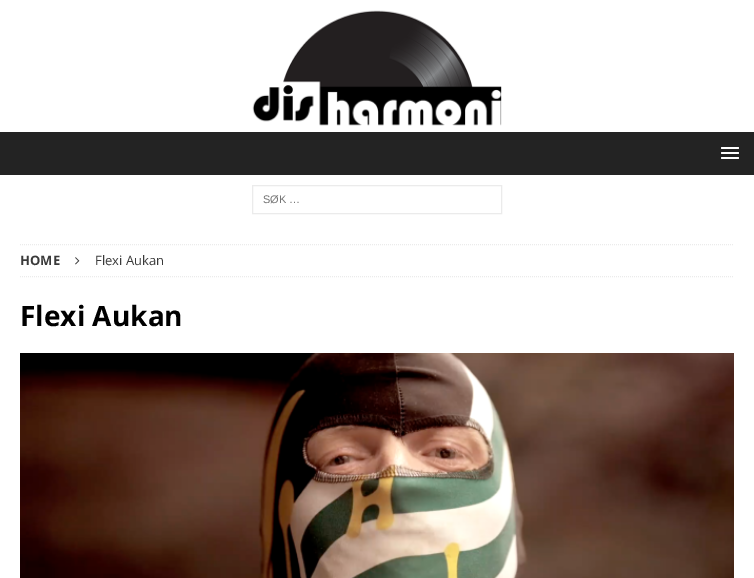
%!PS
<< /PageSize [754 578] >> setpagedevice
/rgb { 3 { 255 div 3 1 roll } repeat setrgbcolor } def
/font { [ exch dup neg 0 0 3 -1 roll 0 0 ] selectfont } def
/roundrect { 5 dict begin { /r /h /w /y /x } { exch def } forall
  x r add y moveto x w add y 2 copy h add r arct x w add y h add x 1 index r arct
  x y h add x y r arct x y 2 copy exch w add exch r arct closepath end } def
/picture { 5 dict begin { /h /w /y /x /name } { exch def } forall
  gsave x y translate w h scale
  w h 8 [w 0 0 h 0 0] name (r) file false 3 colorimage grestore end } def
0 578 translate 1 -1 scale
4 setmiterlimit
255 255 255 rgb
0 0 754 578 rectfill
(img/1.rgb) 252 10 250 116 picture
35 35 35 rgb
0 132 754 43 rectfill
255 255 255 rgb
721 147 18 2 1 roundrect fill
721 152 18 2 1 roundrect fill
721 157 18 2 1 roundrect fill
235 235 235 rgb
252.5 185.5 249 28 rectstroke
[1 1] 0 setdash
20 244.5 moveto 734 244.5 lineto stroke
20 276.5 moveto 734 276.5 lineto stroke
(img/2.rgb) 75 257 5 8 picture
(img/3.rgb) 20 353 714 225 picture
/LiberationSans-Regular 11 font
117 117 117 rgb
263 203 moveto (SØK …) show
/OpenSans-Bold 13 font
58 58 58 rgb
20 265 moveto (HOME) show
/OpenSans-Regular 13 font
95 265 moveto (Flexi Aukan) show
/OpenSans-Bold 28 font
0 0 0 rgb
20 326 moveto (Flexi Aukan) show
showpage
